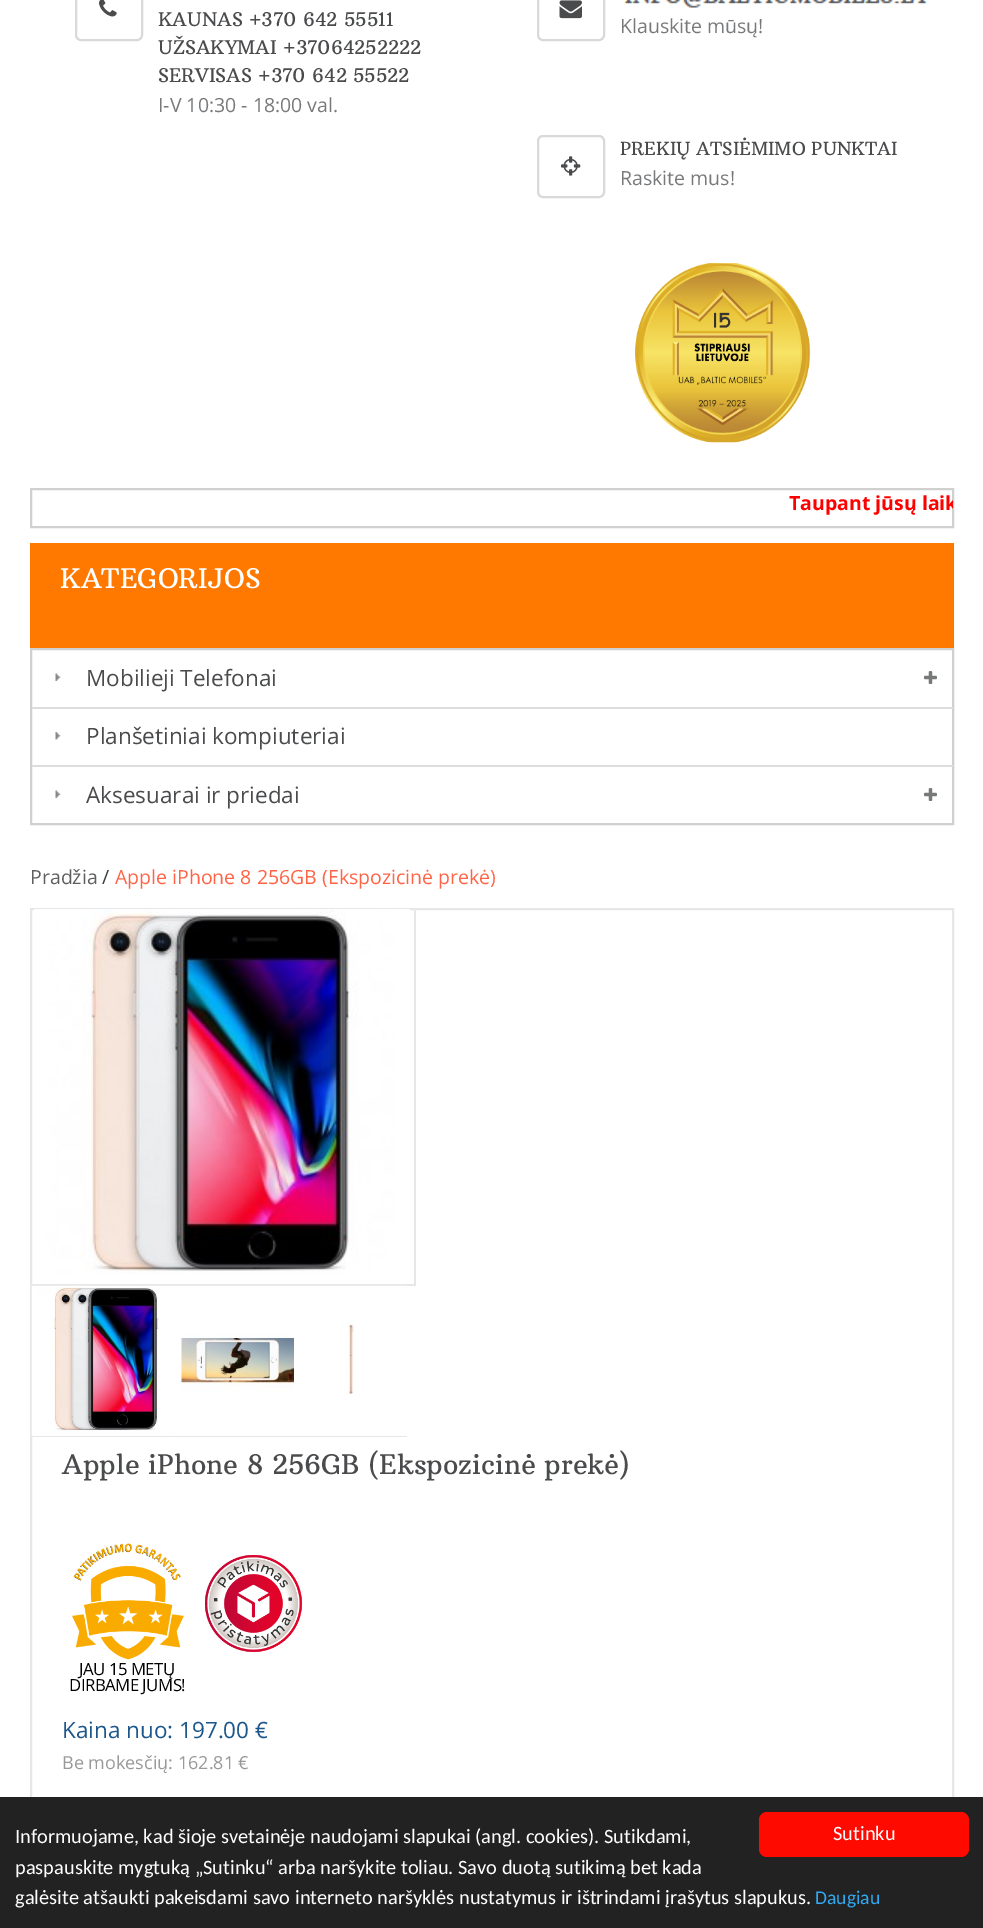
%!PS
<< /PageSize [983 1928] >> setpagedevice
/rgb { 3 { 255 div 3 1 roll } repeat setrgbcolor } def
/font { [ exch dup neg 0 0 3 -1 roll 0 0 ] selectfont } def
/roundrect { 5 dict begin { /r /h /w /y /x } { exch def } forall
  x r add y moveto x w add y 2 copy h add r arct x w add y h add x 1 index r arct
  x y h add x y r arct x y 2 copy exch w add exch r arct closepath end } def
/picture { 5 dict begin { /h /w /y /x /name } { exch def } forall
  gsave x y translate w h scale
  w h 8 [w 0 0 h 0 0] name (r) file false 3 colorimage grestore end } def
0 1928 translate 1 -1 scale
4 setmiterlimit
255 255 255 rgb
0 0 983 1928 rectfill
217 217 217 rgb
2 setlinewidth
76 -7 66 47 5 roundrect stroke
(img/1.rgb) 99 0 18 17 picture
538 -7 66 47 5 roundrect stroke
(img/2.rgb) 559 0 23 19 picture
(img/3.rgb) 623 0 305 8 picture
538 136 66 61 5 roundrect stroke
(img/4.rgb) 561 156 20 20 picture
(img/5.rgb) 635 263 176 180 picture
208 208 208 rgb
31 489 922 38 rectstroke
255 120 0 rgb
30 543 924 105 rectfill
208 208 208 rgb
31 649 922 175 rectstroke
(img/6.rgb) 55 673 6 8 picture
(img/7.rgb) 924 671 13 13 picture
221 221 221 rgb
32 707 921 2 rectfill
(img/8.rgb) 55 732 6 8 picture
32 765 921 2 rectfill
(img/6.rgb) 55 790 6 8 picture
(img/7.rgb) 924 788 13 13 picture
231 231 231 rgb
31 909 922 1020 rectstroke
414 909 2 377 rectfill
32 1284 384 2 rectfill
(img/9.rgb) 34 909 376 366 picture
(img/10.rgb) 31 1285 150 150 picture
32 1436 375 1 rectfill
(img/11.rgb) 181 1285 113 107 picture
(img/12.rgb) 294 1285 112 109 picture
(img/13.rgb) 205 1555 97 97 picture
(img/14.rgb) 72 1543 112 117 picture
34 34 34 rgb
0 1797 983 131 rectfill
255 10 0 rgb
759 1812 210 45 8 roundrect fill
/ArbutusSlab-Regular 18.9 font
74 75 77 rgb
[
  [(KAUNAS +370 642 55511) 158 26]
  [(UŽSAKYMAI +37064252222) 158 54]
  [(SERVISAS +370 642 55522) 158 82]
] { aload pop moveto show } forall
/OpenSans-Regular 19.5 font
120 121 123 rgb
158 112 moveto (I-V 10:30 - 18:00 val.) show
620 33 moveto (Klauskite mūsų!) show
/ArbutusSlab-Regular 18 font
74 75 77 rgb
620 155 moveto (PREKIŲ ATSIĖMIMO PUNKTAI) show
/OpenSans-Regular 19.5 font
120 121 123 rgb
620 185 moveto (Raskite mus!) show
gsave
32 489 921 30 rectclip
/OpenSans-Bold 19.5 font
255 0 0 rgb
789 510 moveto (Taupant jūsų laik) show
grestore
/ArbutusSlab-Regular 27 font
255 255 255 rgb
60 588 moveto (KATEGORIJOS) show
/OpenSans-Regular 22.5 font
74 75 77 rgb
[
  [(Mobilieji Telefonai) 86 686]
  [(Planšetiniai kompiuteriai) 86 744]
  [(Aksesuarai ir priedai) 86 803]
] { aload pop moveto show } forall
/OpenSans-Regular 19.5 font
93 94 96 rgb
30 884 moveto (Pradžia) show
53 61 65 rgb
102 884 moveto (/) show
255 99 70 rgb
115 884 moveto (Apple iPhone 8 256GB \(Ekspozicinė prekė\)) show
/ArbutusSlab-Regular 27 font
74 75 77 rgb
62 1474 moveto (Apple iPhone 8 256GB \(Ekspozicinė prekė\)) show
/OpenSans-Regular 16.75 font
0 0 0 rgb
79 1675 moveto -0.5 0 (JAU 15 METŲ) ashow
69 1691 moveto -0.5 0 (DIRBAME JUMS!) ashow
/OpenSans-Regular 22.5 font
29 86 139 rgb
62 1738 moveto (Kaina nuo: 197.00 €) show
/OpenSans-Regular 18 font
153 153 153 rgb
62 1769 moveto (Be mokesčių: 162.81 €) show
/Carlito-Regular 20.4 font
255 255 255 rgb
[
  [(Sutinku) 833 1840]
  [(Informuojame, kad šioje svetainėje naudojami slapukai \(angl. cookies\). Sutikdami,) 15 1843]
  [(paspauskite mygtuką „Sutinku“ arba naršykite toliau. Savo duotą sutikimą bet kada) 15 1874]
  [(galėsite atšaukti pakeisdami savo interneto naršyklės nustatymus ir ištrindami įrašytus slapukus.) 15 1904]
] { aload pop moveto show } forall
/Carlito-Regular 19.5 font
49 168 240 rgb
815 1904 moveto (Daugiau) show
showpage
